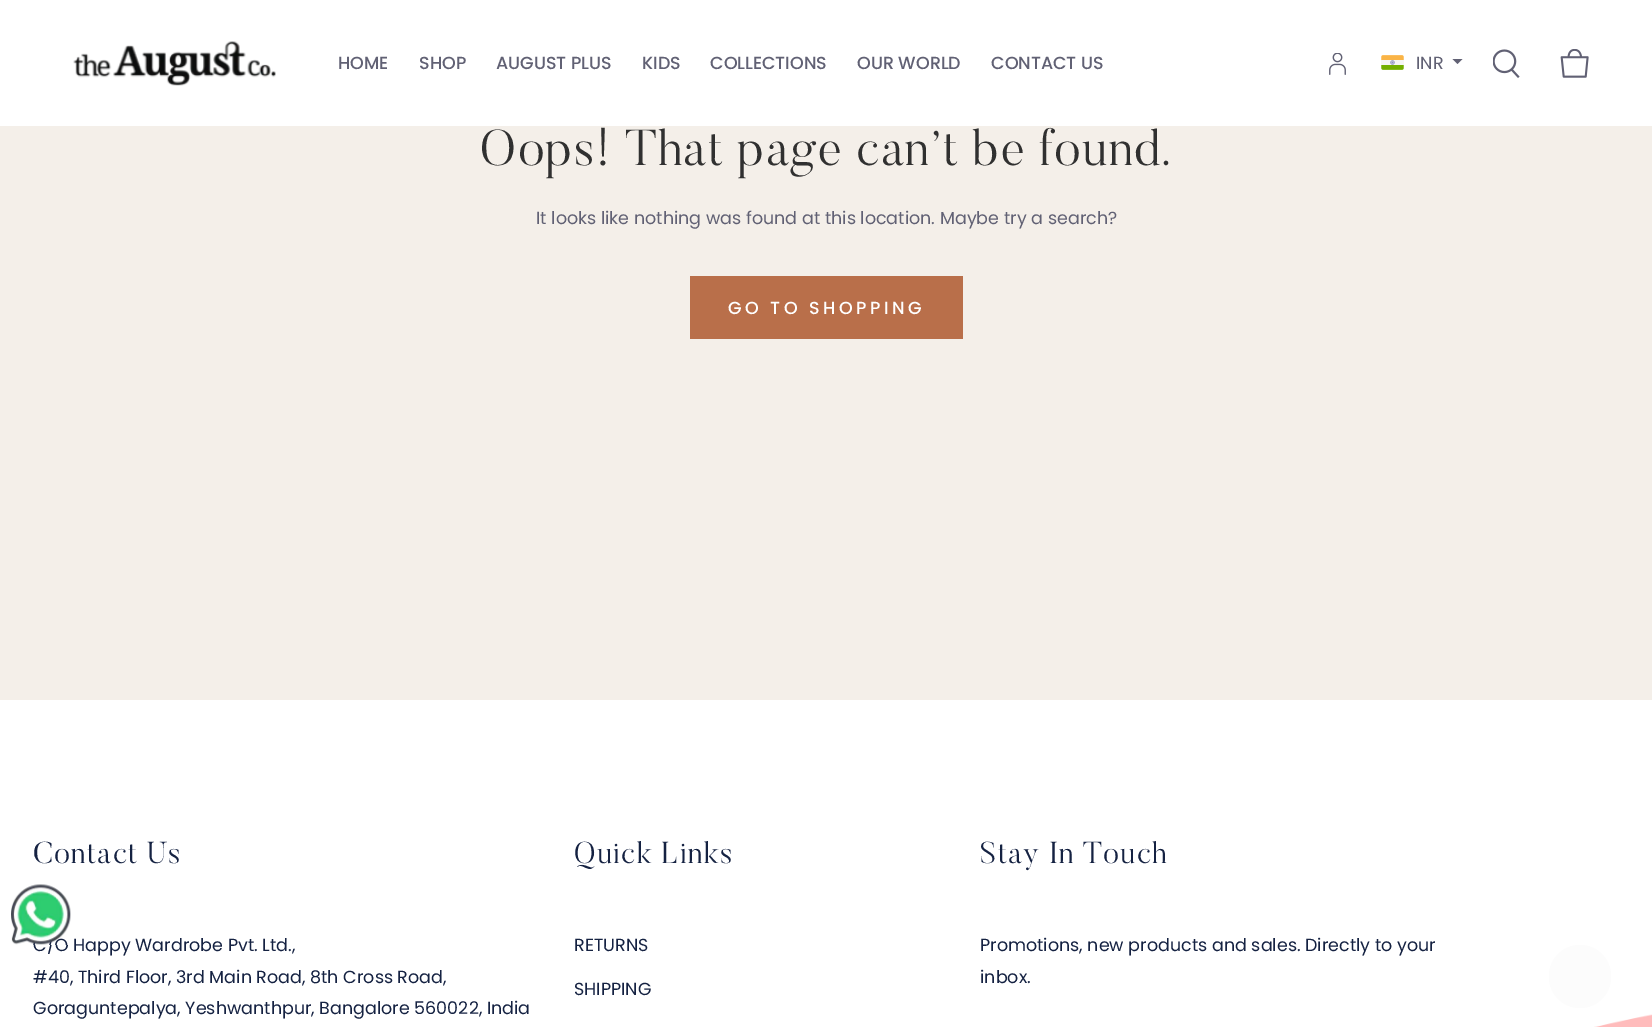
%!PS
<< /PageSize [1652 1027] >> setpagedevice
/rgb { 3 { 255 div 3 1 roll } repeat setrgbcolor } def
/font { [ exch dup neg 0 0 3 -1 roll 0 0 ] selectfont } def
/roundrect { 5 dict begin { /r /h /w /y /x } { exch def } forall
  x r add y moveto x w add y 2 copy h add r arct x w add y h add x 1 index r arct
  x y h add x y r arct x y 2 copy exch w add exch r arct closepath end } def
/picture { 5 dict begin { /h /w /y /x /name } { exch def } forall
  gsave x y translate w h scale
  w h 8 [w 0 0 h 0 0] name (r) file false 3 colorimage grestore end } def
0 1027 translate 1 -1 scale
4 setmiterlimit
255 255 255 rgb
0 0 1652 1027 rectfill
(img/1.rgb) 73 41 203 45 picture
(img/2.rgb) 1329 53 17 22 picture
(img/3.rgb) 1381 55 23 15 picture
97 97 116 rgb
1452.5 59 moveto 1462.5 59 lineto 1457.5 64 lineto closepath fill
(img/4.rgb) 1493 49 27 29 picture
(img/5.rgb) 1560 49 29 29 picture
244 239 233 rgb
0 126 1652 574 rectfill
185 111 74 rgb
690 276 273 63 rectfill
(img/7.rgb) 1594 1014 58 13 picture
252 252 252 rgb
1549 945 62 63 31 roundrect fill
/Poppins-Medium 17.5 font
97 97 116 rgb
[
  [(HOME) 338 69]
  [(SHOP) 419 69]
  [(AUGUST PLUS) 496 69]
  [(KIDS) 642 69]
  [(COLLECTIONS) 710 69]
  [(OUR WORLD) 857 69]
  [(CONTACT US) 991 69]
] { aload pop moveto show } forall
/Poppins-Regular 17.5 font
1416 69 moveto (INR) show
/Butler-Light 50 font
48 48 48 rgb
480 165 moveto 1.25 0 (Oops! That page can’t be found.) ashow
/Poppins-Regular 17.5 font
97 97 116 rgb
536 224 moveto (It looks like nothing was found at this location. Maybe try a search?) show
/Poppins-Medium 17.5 font
255 255 255 rgb
728 314 moveto 3.5 0 (GO TO SHOPPING) ashow
/Butler-Light 30 font
21 34 66 rgb
33 863 moveto 1.25 0 (Contact Us) ashow
/Poppins-Regular 17.5 font
33 951 moveto (C/O Happy Wardrobe Pvt. Ltd.,) show
(img/6.rgb) 11 884 60 61 picture
33 983 moveto (#40, Third Floor, 3rd Main Road, 8th Cross Road,) show
33 1014 moveto (Goraguntepalya, Yeshwanthpur, Bangalore 560022, India) show
/Butler-Light 30 font
574 863 moveto 1.25 0 (Quick Links) ashow
/Poppins-Regular 17.5 font
574 951 moveto (RETURNS) show
574 995 moveto (SHIPPING) show
/Butler-Light 30 font
980 863 moveto 1.25 0 (Stay In Touch) ashow
/Poppins-Regular 17.5 font
980 951 moveto (Promotions, new products and sales. Directly to your) show
980 983 moveto (inbox.) show
showpage
